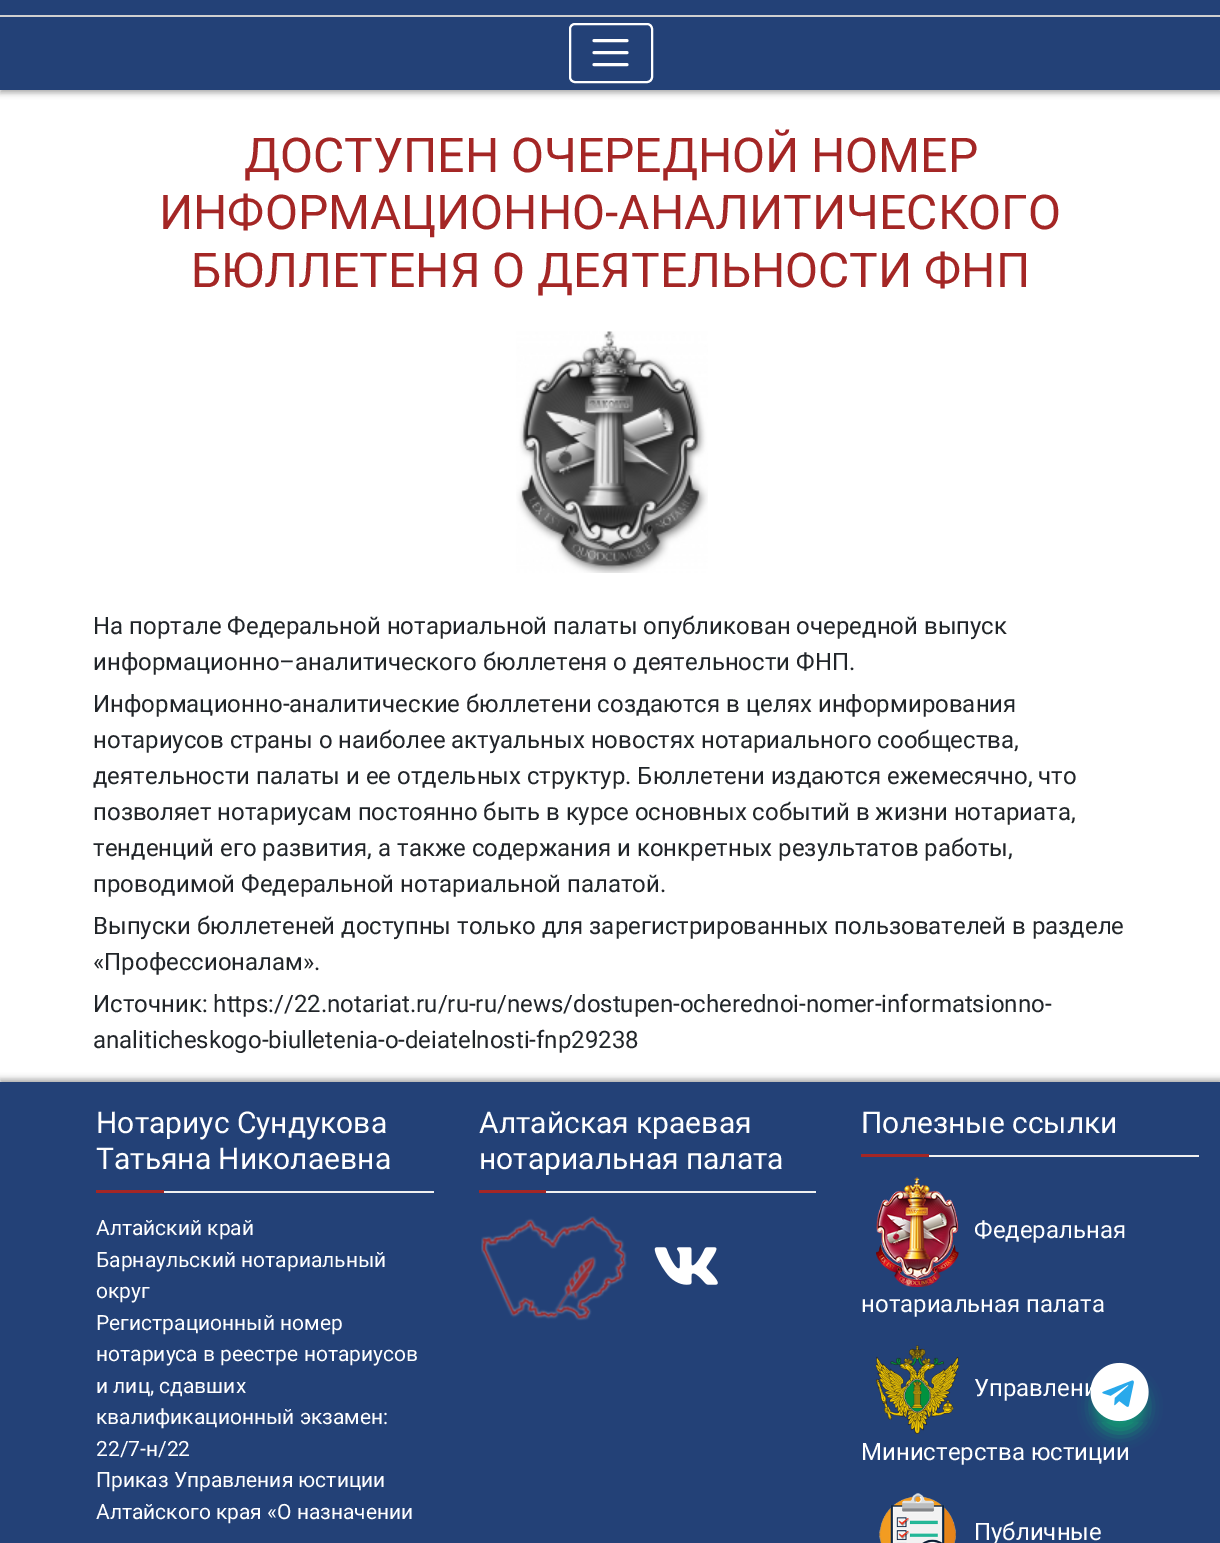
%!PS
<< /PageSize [1220 1543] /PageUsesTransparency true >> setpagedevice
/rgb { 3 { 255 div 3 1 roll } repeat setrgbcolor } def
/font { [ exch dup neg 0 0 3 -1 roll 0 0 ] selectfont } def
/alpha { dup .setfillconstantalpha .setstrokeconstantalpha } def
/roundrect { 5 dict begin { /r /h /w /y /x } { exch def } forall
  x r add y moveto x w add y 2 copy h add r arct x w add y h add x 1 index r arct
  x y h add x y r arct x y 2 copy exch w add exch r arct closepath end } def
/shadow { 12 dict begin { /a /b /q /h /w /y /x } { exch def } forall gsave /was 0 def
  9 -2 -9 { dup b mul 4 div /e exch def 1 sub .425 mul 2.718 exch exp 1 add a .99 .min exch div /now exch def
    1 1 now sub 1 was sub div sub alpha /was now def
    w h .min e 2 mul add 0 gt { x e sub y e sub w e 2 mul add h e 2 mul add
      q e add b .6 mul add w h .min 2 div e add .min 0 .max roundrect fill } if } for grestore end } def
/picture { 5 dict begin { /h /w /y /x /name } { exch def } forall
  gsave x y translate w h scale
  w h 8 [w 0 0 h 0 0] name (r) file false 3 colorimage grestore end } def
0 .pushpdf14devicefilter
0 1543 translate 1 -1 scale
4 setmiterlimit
255 255 255 rgb
0 0 1220 1543 rectfill
0 0 0 rgb
0 -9 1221 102 0 3 0.33 shadow
35 65 119 rgb
0 0 1220 90 rectfill
207 207 207 rgb
0 15 1220 2 rectfill
255 255 255 rgb
2 setlinewidth
570 24 82 58 5 roundrect stroke
3 setlinewidth
1 setlinecap
594 40.5 moveto 627 40.5 lineto 594 52.5 moveto 627 52.5 lineto 594 64.5 moveto 627 64.5 lineto stroke
0 0 0 rgb
0 1079 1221 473 0 3 0.33 shadow
35 65 119 rgb
0 1082 1220 461 rectfill
7 206 112 rgb
1094 1380 52 53 26 7.5 0.6 shadow
(img/2.rgb) 516 331 192 242 picture
[
  [96 1190 68 3 164 38 37]
  [164 1191 270 2 240 240 240]
  [479 1190 67 3 164 38 37]
  [546 1191 270 2 240 240 240]
] { aload pop rgb rectfill } forall
(img/3.rgb) 481 1216 146 105 picture
(img/4.rgb) 654 1247 64 38 picture
164 38 37 rgb
861 1154 68 3 rectfill
240 240 240 rgb
929 1155 270 2 rectfill
(img/5.rgb) 876 1177 83 110 picture
(img/6.rgb) 876 1345 83 89 picture
(img/7.rgb) 879 1493 77 50 picture
/Roboto-Regular 48 font
164 38 37 rgb
[
  [(ДОСТУПЕН ОЧЕРЕДНОЙ НОМЕР) 244 172]
  [(ИНФОРМАЦИОННО-АНАЛИТИЧЕСКОГО) 159 229]
  [(БЮЛЛЕТЕНЯ О ДЕЯТЕЛЬНОСТИ ФНП) 191 287]
] { aload pop moveto show } forall
/Roboto-Regular 24 font
33 37 41 rgb
[
  [(На портале Федеральной нотариальной палаты опубликован очередной выпуск) 93 634]
  [(информационно–аналитического бюллетеня о деятельности ФНП.) 93 670]
  [(Информационно-аналитические бюллетени создаются в целях информирования) 93 712]
  [(нотариусов страны о наиболее актуальных новостях нотариального сообщества,) 93 748]
  [(деятельности палаты и ее отдельных структур. Бюллетени издаются ежемесячно, что) 93 784]
  [(позволяет нотариусам постоянно быть в курсе основных событий в жизни нотариата,) 93 820]
  [(тенденций его развития, а также содержания и конкретных результатов работы,) 93 856]
  [(проводимой Федеральной нотариальной палатой.) 93 892]
  [(Выпуски бюллетеней доступны только для зарегистрированных пользователей в разделе) 93 934]
  [(«Профессионалам».) 93 970]
  [(Источник: https://22.notariat.ru/ru-ru/news/dostupen-ocherednoi-nomer-informatsionno-) 93 1012]
  [(analiticheskogo-biulletenia-o-deiatelnosti-fnp29238) 93 1048]
] { aload pop moveto show } forall
/Roboto-Regular 30 font
255 255 255 rgb
96 1133 moveto (Нотариус Сундукова) show
96 1169 moveto (Татьяна Николаевна) show
/Roboto-Regular 21 font
[
  [(Алтайский край) 96 1235]
  [(Барнаульский нотариальный) 96 1267]
  [(округ) 96 1298]
  [(Регистрационный номер) 96 1330]
  [(нотариуса в реестре нотариусов) 96 1361]
  [(и лиц, сдавших) 96 1393]
  [(квалификационный экзамен:) 96 1424]
  [(22/7-н/22) 96 1456]
  [(Приказ Управления юстиции) 96 1487]
  [(Алтайского края «О назначении) 96 1519]
] { aload pop moveto show } forall
/Roboto-Regular 30 font
[
  [(Алтайская краевая) 479 1133]
  [(нотариальная палата) 479 1169]
  [(Полезные ссылки) 861 1133]
] { aload pop moveto show } forall
/Roboto-Regular 24 font
[
  [(Федеральная) 974 1238]
  [(нотариальная палата) 861 1312]
  [(Управлени) 974 1396]
] { aload pop moveto show } forall
41 169 235 rgb
1096.5 1370.5 47 48 23.5 roundrect gsave fill grestore
21 145 208 rgb
5 setlinewidth
0 setlinecap
stroke
(img/1.rgb) 1090 1362 59 60 picture
255 255 255 rgb
861 1460 moveto (Министерства юстиции) show
974 1540 moveto (Публичные) show
.poppdf14devicefilter showpage
